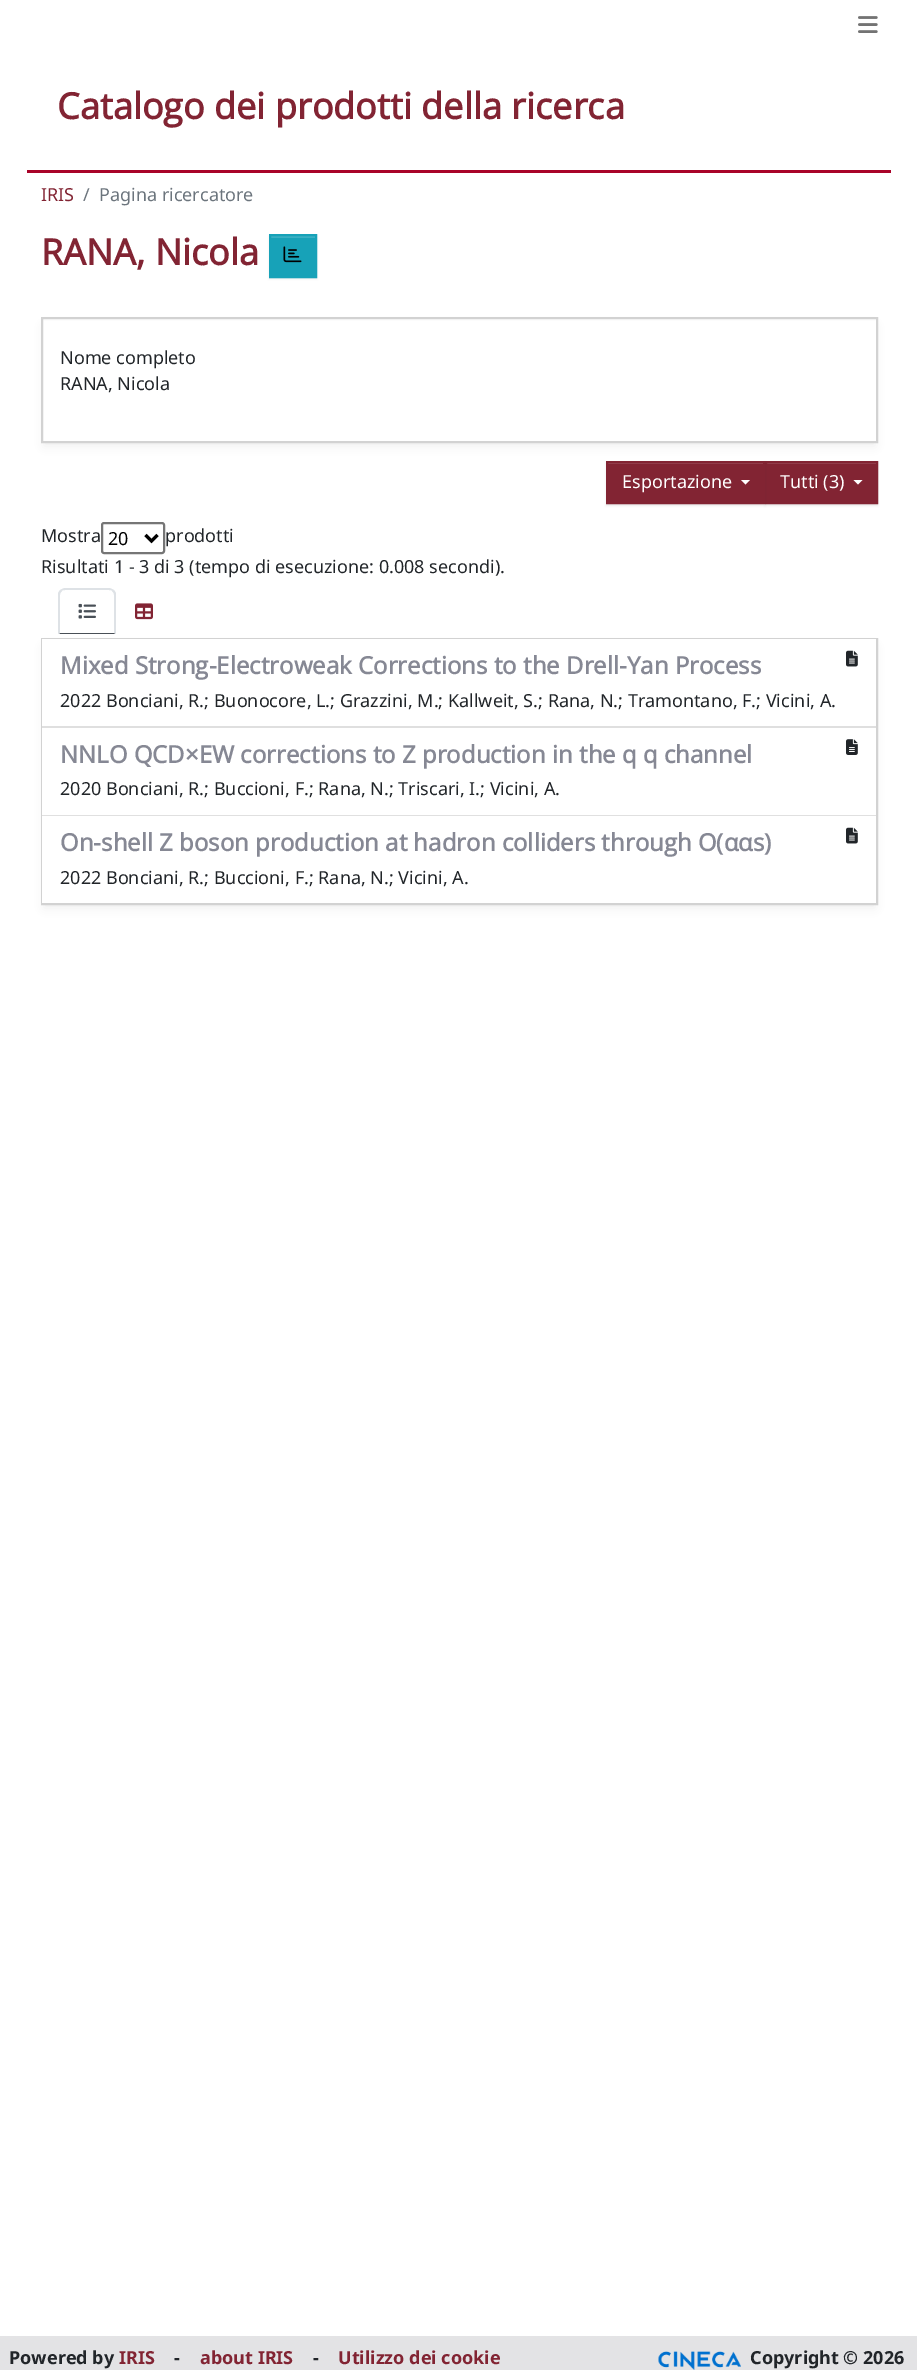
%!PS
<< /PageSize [917 2370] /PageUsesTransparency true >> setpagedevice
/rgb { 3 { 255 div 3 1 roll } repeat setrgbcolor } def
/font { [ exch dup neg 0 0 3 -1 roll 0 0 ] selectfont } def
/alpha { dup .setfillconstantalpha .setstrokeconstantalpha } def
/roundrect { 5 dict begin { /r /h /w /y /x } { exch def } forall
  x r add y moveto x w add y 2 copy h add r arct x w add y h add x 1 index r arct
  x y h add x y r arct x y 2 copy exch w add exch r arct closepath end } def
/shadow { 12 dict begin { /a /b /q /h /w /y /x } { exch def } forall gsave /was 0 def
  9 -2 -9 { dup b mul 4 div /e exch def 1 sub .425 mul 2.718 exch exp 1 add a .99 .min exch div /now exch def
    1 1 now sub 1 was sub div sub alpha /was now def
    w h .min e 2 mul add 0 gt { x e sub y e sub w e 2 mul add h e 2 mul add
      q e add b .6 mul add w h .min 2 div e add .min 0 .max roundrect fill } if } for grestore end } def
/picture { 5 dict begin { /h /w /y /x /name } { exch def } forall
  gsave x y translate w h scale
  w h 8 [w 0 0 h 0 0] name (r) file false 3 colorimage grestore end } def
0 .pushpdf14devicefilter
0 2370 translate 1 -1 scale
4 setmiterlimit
255 255 255 rgb
0 0 917 2370 rectfill
(img/1.rgb) 858 16 20 17 picture
169 3 41 rgb
27 170 864 3 rectfill
0 0 0 rgb
269 236 48 43 0 1 0.07 shadow
23 162 184 rgb
271 238 44 38 rectfill
58 176 195 rgb
270 236 45 2 rectfill
23 162 184 rgb
2 setlinewidth
270 235 46 42 rectstroke
(img/2.rgb) 283 246 19 17 picture
238 238 238 rgb
44 326 831 120 0 4.5 1 shadow
255 255 255 rgb
43 321 833 120 rectfill
210 210 210 rgb
42 318 835 124 rectstroke
0 0 0 rgb
765 462 113 44 0 1 0.07 shadow
130 36 51 rgb
767 464 109 38 rectfill
149 69 82 rgb
767 463 109 1 rectfill
130 36 51 rgb
766 462 111 41 rectstroke
0 0 0 rgb
606 462 159 44 0 1 0.07 shadow
130 36 51 rgb
608 464 155 38 rectfill
149 69 82 rgb
608 463 156 1 rectfill
130 36 51 rgb
607 462 157 41 rectstroke
255 255 255 rgb
741 480 moveto 750 480 lineto 745.5 484.5 lineto closepath fill
853.5 480 moveto 862.5 480 lineto 858 484.5 lineto closepath fill
118 118 118 rgb
102 523 62 30 2 roundrect stroke
0 0 0 rgb
3 setlinewidth
145.5 535 moveto 151.5 541 lineto 157.5 535 lineto stroke
222 226 230 rgb
65 588 moveto 64 588 62 589 60 590 curveto 62 591 lineto 62 590 64 590 65 590 curveto 109 590 lineto 110 590 112 590 112 591 curveto 114 590 lineto 112 589 110 588 109 588 curveto closepath fill
116 634 moveto 114 633 lineto 114 595 lineto 114 593 113 592 112 591 curveto 114 590 lineto 116 593 lineto closepath fill
73 80 87 rgb
115 634 moveto 59 634 lineto 60 633 lineto 114 633 lineto closepath fill
222 226 230 rgb
58 593 moveto 60 590 lineto 62 591 lineto 61 592 60 593 60 595 curveto 60 633 lineto 58 634 lineto closepath fill
(img/3.rgb) 78 603 18 16 picture
(img/4.rgb) 135 603 18 17 picture
238 238 238 rgb
44 647 831 261 0 4.5 1 shadow
210 210 210 rgb
2 setlinewidth
42 639 835 265 rectstroke
255 255 255 rgb
42 639 834 87 rectfill
223 223 223 rgb
42 726 834 2 rectfill
(img/5.rgb) 846 650 12 17 picture
255 255 255 rgb
42 728 834 175 rectfill
0.12 alpha
0 0 0 rgb
42 815 834 1 rectfill
1 alpha
(img/6.rgb) 846 739 12 16 picture
(img/5.rgb) 846 827 12 17 picture
227 227 229 rgb
0 2336 917 34 rectfill
(img/7.rgb) 658 2351 83 19 picture
/OpenSans-Bold 36 font
130 36 51 rgb
57 119 moveto (Catalogo dei prodotti della ricerca) show
/NotoSans-Regular 18 font
41 201 moveto (IRIS) show
108 117 125 rgb
83 201 moveto (/) show
99 201 moveto (Pagina ricercatore) show
/OpenSans-Bold 36 font
130 36 51 rgb
41 265 moveto (RANA, Nicola) show
/NotoSans-Regular 18 font
33 37 41 rgb
60 364 moveto (Nome completo) show
60 390 moveto (RANA, Nicola) show
255 255 255 rgb
622 488 moveto (Esportazione) show
780 488 moveto (Tutti \(3\)) show
33 37 41 rgb
41 542 moveto (Mostra) show
0 0 0 rgb
108 545 moveto (20) show
33 37 41 rgb
165 542 moveto (prodotti) show
41 573 moveto (Risultati 1 - 3 di 3 \(tempo di esecuzione: 0.008 secondi\).) show
/OpenSans-Bold 24 font
134 136 148 rgb
60 674 moveto (Mixed Strong-Electroweak Corrections to the Drell-Yan Process) show
/NotoSans-Regular 18 font
33 37 41 rgb
60 707 moveto (2022 Bonciani, R.; Buonocore, L.; Grazzini, M.; Kallweit, S.; Rana, N.; Tramontano, F.; Vicini, A.) show
/OpenSans-Bold 24 font
134 136 148 rgb
60 763 moveto (NNLO QCD×EW corrections to Z production in the q q channel) show
/NotoSans-Regular 18 font
33 37 41 rgb
60 795 moveto (2020 Bonciani, R.; Buccioni, F.; Rana, N.; Triscari, I.; Vicini, A.) show
/OpenSans-Bold 24 font
134 136 148 rgb
60 851 moveto (On-shell Z boson production at hadron colliders through O\(ααs\)) show
/NotoSans-Regular 18 font
33 37 41 rgb
60 884 moveto (2022 Bonciani, R.; Buccioni, F.; Rana, N.; Vicini, A.) show
/NotoSans-Bold 18 font
9 2364 moveto (Powered by) show
130 36 51 rgb
119 2364 moveto (IRIS) show
33 37 41 rgb
174 2364 moveto (-) show
130 36 51 rgb
200 2364 moveto (about IRIS) show
33 37 41 rgb
313 2364 moveto (-) show
130 36 51 rgb
338 2364 moveto (Utilizzo dei cookie) show
33 37 41 rgb
750 2364 moveto (Copyright © 2026) show
.poppdf14devicefilter showpage
